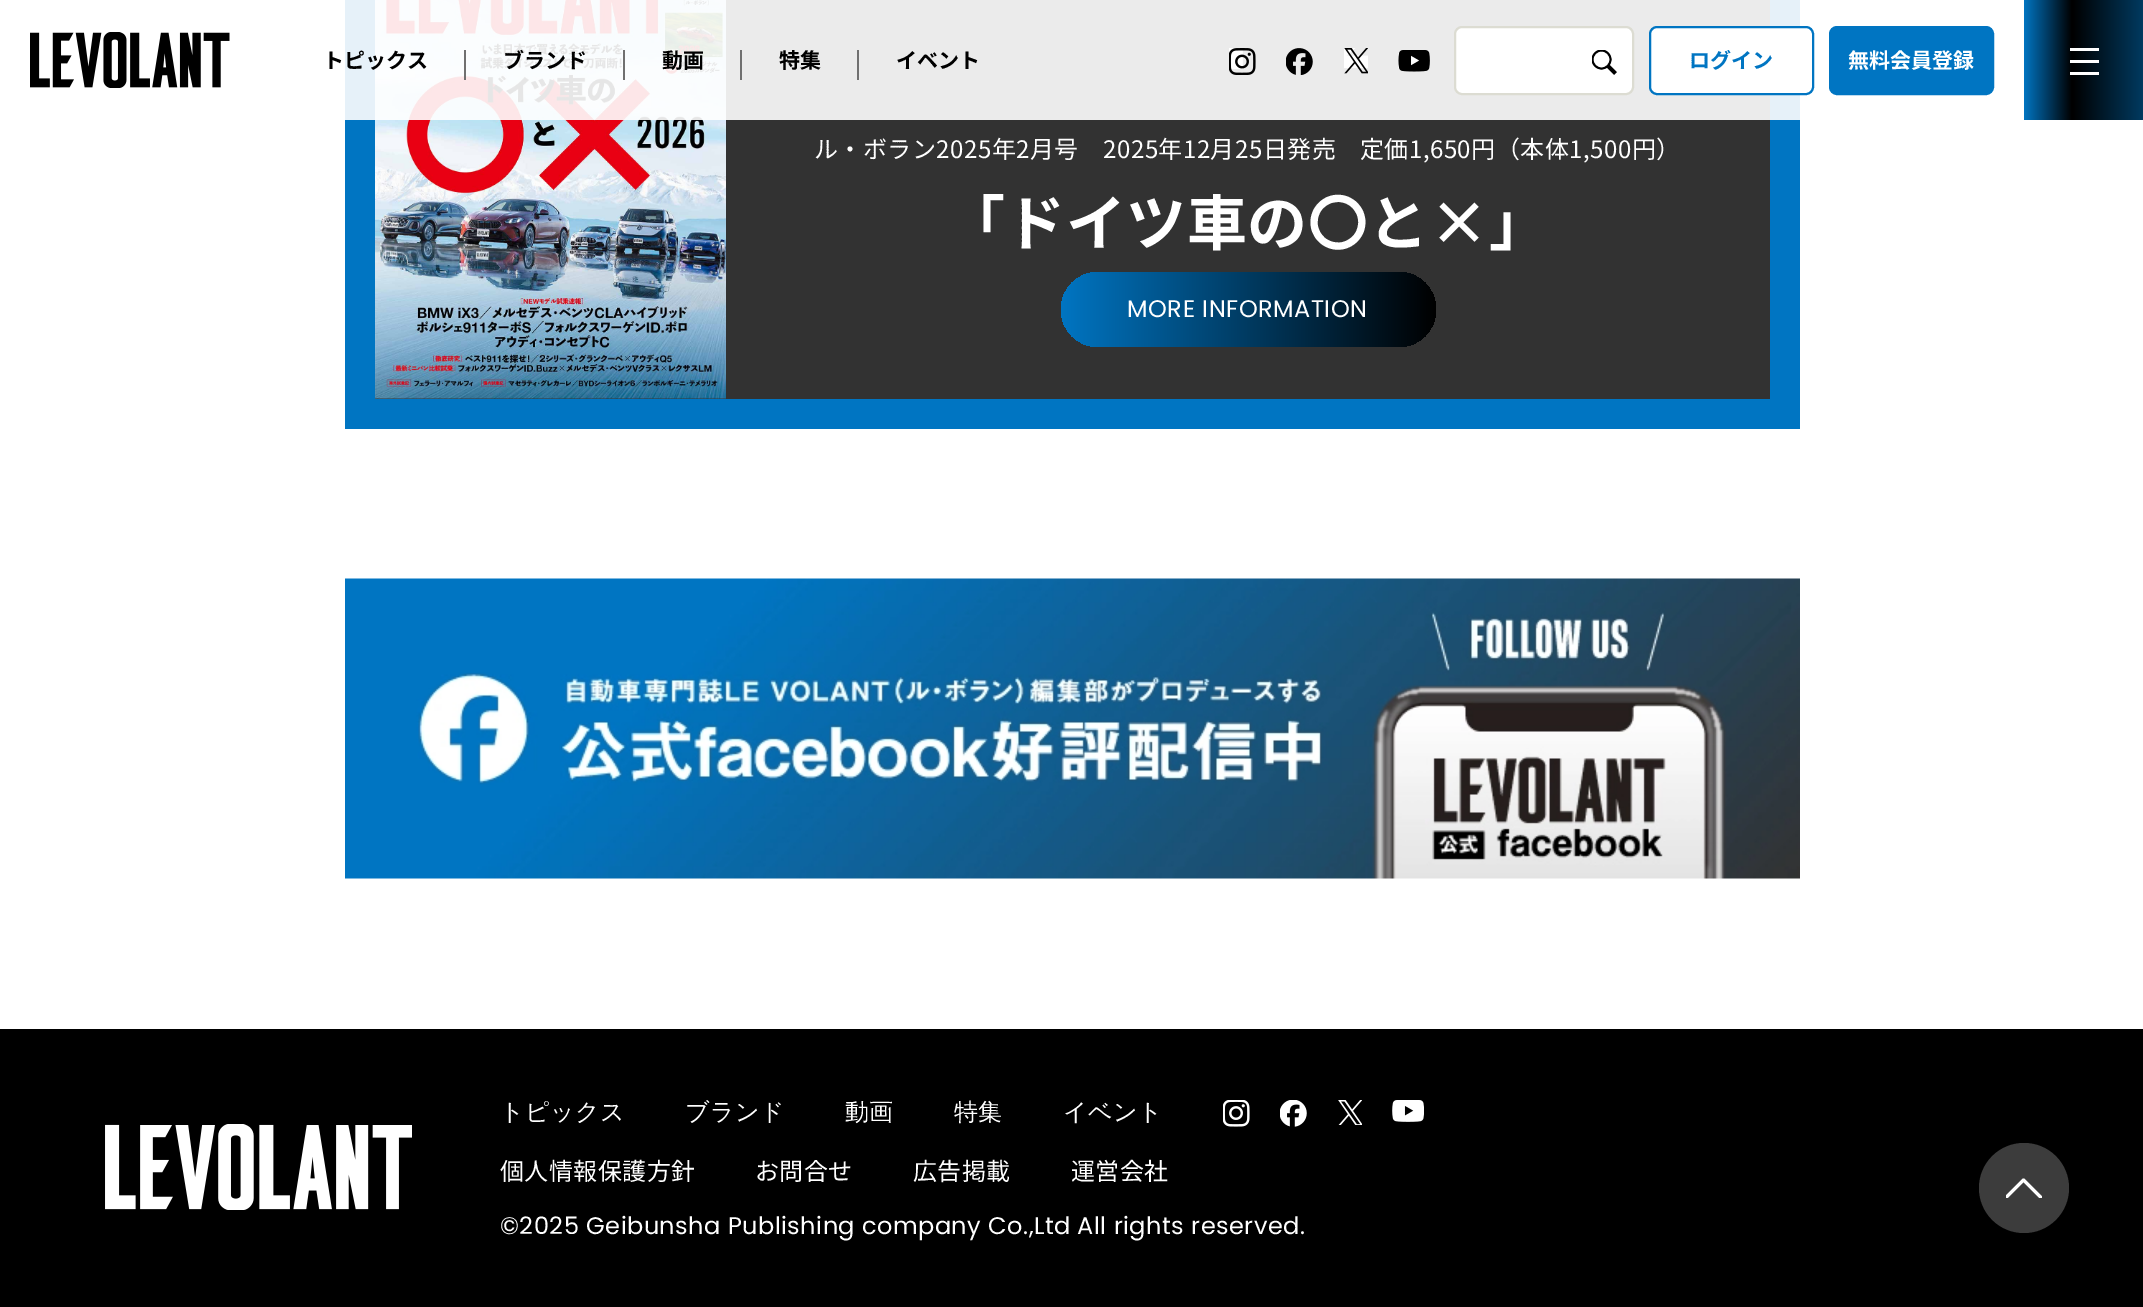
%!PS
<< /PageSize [2143 1307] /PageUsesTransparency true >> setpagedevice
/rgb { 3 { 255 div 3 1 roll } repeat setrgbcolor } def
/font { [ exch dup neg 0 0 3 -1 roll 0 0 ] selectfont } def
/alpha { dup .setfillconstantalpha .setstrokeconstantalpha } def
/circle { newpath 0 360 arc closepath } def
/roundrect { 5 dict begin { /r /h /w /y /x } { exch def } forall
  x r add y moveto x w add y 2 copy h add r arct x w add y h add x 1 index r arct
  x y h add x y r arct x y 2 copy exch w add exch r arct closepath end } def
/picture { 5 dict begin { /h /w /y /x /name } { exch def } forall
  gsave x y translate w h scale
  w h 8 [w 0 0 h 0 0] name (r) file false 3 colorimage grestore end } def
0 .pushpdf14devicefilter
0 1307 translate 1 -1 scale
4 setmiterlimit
255 255 255 rgb
0 0 2143 1307 rectfill
0 117 194 rgb
345 0 1455 429 rectfill
50 50 50 rgb
375 0 1395 399 rectfill
(img/6.rgb) 375 0 351 399 picture
0.9 alpha
255 255 255 rgb
345 0 1455 120 rectfill
1 alpha
(img/1.rgb) 30 32 200 56 picture
[
  [464 50 2 30 112 112 112]
  [623 50 2 30 112 112 112]
  [740 50 2 30 112 112 112]
  [857 50 2 30 112 112 112]
] { aload pop rgb rectfill } forall
(img/2.rgb) 1229 48 27 27 picture
(img/3.rgb) 1286 48 27 27 picture
(img/4.rgb) 1344 48 24 26 picture
(img/5.rgb) 1398 50 32 22 picture
255 255 255 rgb
1455 27 178 67 7 roundrect gsave fill grestore
220 220 210 rgb
2 setlinewidth
stroke
gsave
1592 50 25 25 rectclip
0 0 0 rgb
1.9 setlinewidth
1601.5 59.5 9 circle stroke
grestore
0 0 0 rgb
3.8 setlinewidth
1608 66 moveto 1615.5 73.5 lineto stroke
255 255 255 rgb
1650 27 163 67 7 roundrect gsave fill grestore
0 117 194 rgb
2 setlinewidth
stroke
1830 27 163 67 7 roundrect gsave fill grestore
stroke
gsave 2024 0 moveto 2143 0 lineto 2143 120 lineto 2024 120 lineto closepath clip newpath
<< /ShadingType 2 /ColorSpace /DeviceRGB /Coords [2024 60 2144 60] /Extend [true true] /Function << /FunctionType 3 /Domain [0 1] /Functions [<< /FunctionType 2 /Domain [0 1] /C0 [0 0.459 0.761] /C1 [0 0 0] /N 1 >> << /FunctionType 2 /Domain [0 1] /C0 [0 0 0] /C1 [0 0.231 0.38] /N 1 >>] /Bounds [0.4] /Encode [0 1 0 1] >> >> shfill grestore
[
  [2070 48 29 3 255 255 255]
  [2070 60 29 3 255 255 255]
  [2070 72 29 3 255 255 255]
] { aload pop rgb rectfill } forall
gsave 1061 272 375 75 37.5 roundrect clip newpath
<< /ShadingType 2 /ColorSpace /DeviceRGB /Coords [1061 309 1436 309] /Extend [true true] /Function << /FunctionType 2 /Domain [0 1] /C0 [0 0.459 0.761] /C1 [0 0 0] /N 1 >> >> shfill grestore
(img/7.rgb) 345 578 1455 301 picture
0 0 0 rgb
0 1029 2143 278 rectfill
(img/8.rgb) 105 1124 307 86 picture
(img/9.rgb) 1223 1100 27 27 picture
(img/10.rgb) 1280 1100 27 27 picture
(img/11.rgb) 1338 1100 24 25 picture
(img/12.rgb) 1392 1100 32 22 picture
60 60 60 rgb
2024 1188 45 circle fill
gsave
2006 1178 36 20 rectclip
255 255 255 rgb
3 setlinewidth
1 setlinecap
1 setlinejoin
2040.5 1197 moveto 2023.5 1180 lineto 2006.5 1197 lineto stroke
grestore
/NotoSansJP-Bold 21 font
0 0 0 rgb
[
  [(トピックス) 323 68]
  [(ブランド) 503 68]
  [(動画) 662 68]
  [(特集) 779 68]
  [(イベント) 896 68]
] { aload pop moveto show } forall
0 117 194 rgb
1689 68 moveto (ログイン) show
255 255 255 rgb
1848 68 moveto (無料会員登録) show
/NotoSansJP-Regular 24 font
814 158 moveto 0.48 0 (ル・ボラン2025年2月号　2025年12月25日発売) ashow
1360 158 moveto 0.48 0 (定価1,650円（本体1,500円）) ashow
/NotoSansJP-Bold 60 font
945 245 moveto 0.48 0 (「ドイツ車の〇と×」) ashow
/Poppins-Regular 24 font
1127 317 moveto 0.48 0 (MORE INFORMATION) ashow
/WenQuanYiZenHei-Medium 24 font
500 1120 moveto 0.48 0 (トピックス) ashow
685 1120 moveto 0.48 0 (ブランド) ashow
845 1120 moveto 0.48 0 (動画) ashow
954 1120 moveto 0.48 0 (特集) ashow
1063 1120 moveto 0.48 0 (イベント) ashow
/NotoSansJP-Regular 24 font
500 1180 moveto 0.48 0 (個人情報保護方針) ashow
755 1180 moveto 0.48 0 (お問合せ) ashow
913 1180 moveto 0.48 0 (広告掲載) ashow
1071 1180 moveto 0.48 0 (運営会社) ashow
/Poppins-Regular 24 font
500 1234 moveto 0.48 0 (©2025 Geibunsha Publishing company Co.,Ltd All rights reserved.) ashow
.poppdf14devicefilter showpage
